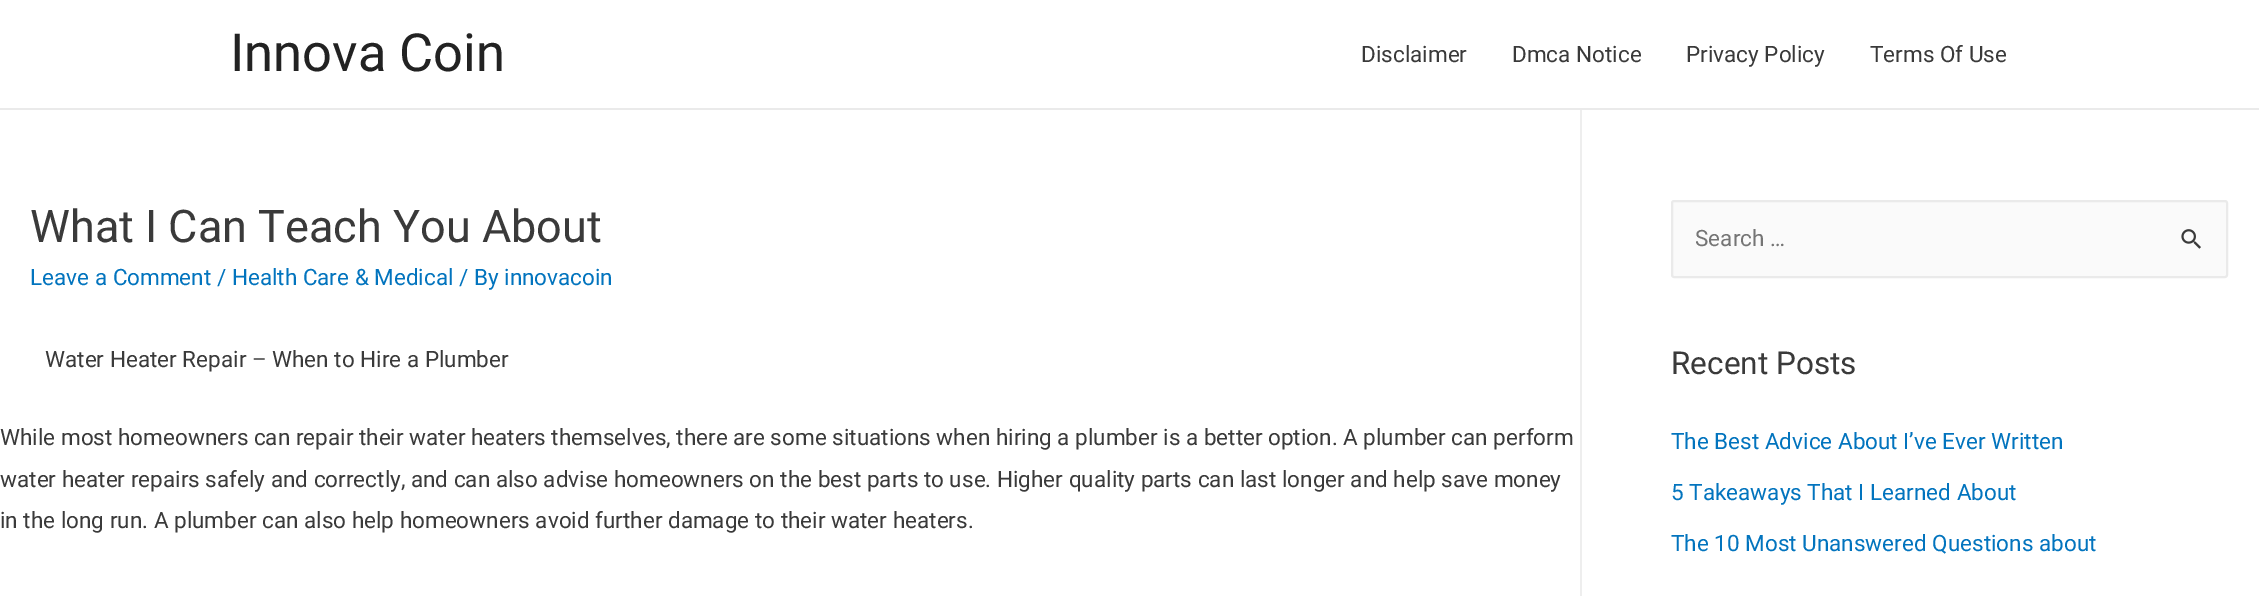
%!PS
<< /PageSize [2259 596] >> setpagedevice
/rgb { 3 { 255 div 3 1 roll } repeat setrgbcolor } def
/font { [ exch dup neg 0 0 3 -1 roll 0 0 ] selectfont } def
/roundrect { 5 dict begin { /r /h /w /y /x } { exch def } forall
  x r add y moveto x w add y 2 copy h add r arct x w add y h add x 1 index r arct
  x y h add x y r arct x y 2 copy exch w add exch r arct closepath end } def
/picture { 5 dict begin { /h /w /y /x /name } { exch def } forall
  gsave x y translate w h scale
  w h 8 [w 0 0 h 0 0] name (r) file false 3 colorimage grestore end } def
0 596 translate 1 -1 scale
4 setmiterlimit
255 255 255 rgb
0 0 2259 596 rectfill
234 234 234 rgb
0 108 2259 2 rectfill
238 238 238 rgb
1580 110 2 486 rectfill
250 250 250 rgb
1672 201 555 76 2 roundrect gsave fill grestore
234 234 234 rgb
2 setlinewidth
stroke
(img/1.rgb) 2181 229 20 20 picture
/Roboto-Regular 52.5 font
34 34 34 rgb
230 71 moveto (Innova Coin) show
/Roboto-Regular 22.5 font
58 58 58 rgb
[
  [(Disclaimer) 1361 62]
  [(Dmca Notice) 1512 62]
  [(Privacy Policy) 1686 62]
  [(Terms Of Use) 1870 62]
] { aload pop moveto show } forall
/Roboto-Regular 45 font
30 242 moveto (What I Can Teach You About) show
/Roboto-Regular 22.5 font
2 116 190 rgb
30 285 moveto (Leave a Comment / Health Care & Medical / By innovacoin) show
58 58 58 rgb
[
  [(Water Heater Repair – When to Hire a Plumber) 45 367]
  [(While most homeowners can repair their water heaters themselves, there are some situations when hiring a plumber is a better option. A plumber can perform) 0 445]
  [(water heater repairs safely and correctly, and can also advise homeowners on the best parts to use. Higher quality parts can last longer and help save money) 0 487]
  [(in the long run. A plumber can also help homeowners avoid further damage to their water heaters.) 0 528]
] { aload pop moveto show } forall
117 117 117 rgb
1695 246 moveto (Search …) show
/Roboto-Regular 31.5 font
58 58 58 rgb
1671 374 moveto (Recent Posts) show
/Roboto-Regular 22.5 font
2 116 190 rgb
[
  [(The Best Advice About I’ve Ever Written) 1671 449]
  [(5 Takeaways That I Learned About) 1671 500]
  [(The 10 Most Unanswered Questions about) 1671 551]
] { aload pop moveto show } forall
showpage
